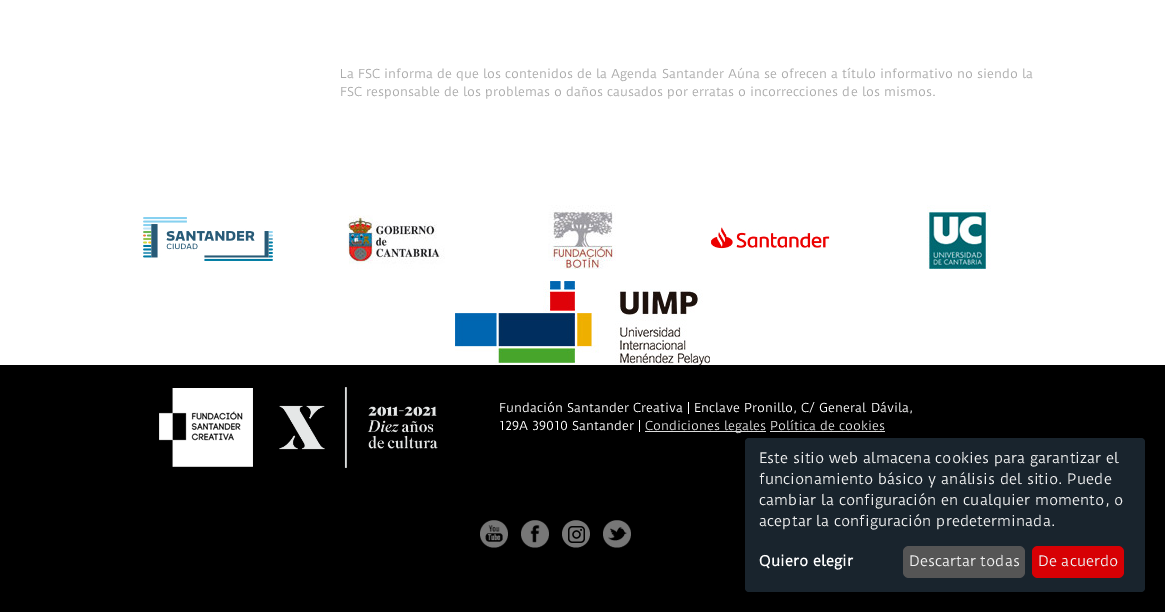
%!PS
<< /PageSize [1165 612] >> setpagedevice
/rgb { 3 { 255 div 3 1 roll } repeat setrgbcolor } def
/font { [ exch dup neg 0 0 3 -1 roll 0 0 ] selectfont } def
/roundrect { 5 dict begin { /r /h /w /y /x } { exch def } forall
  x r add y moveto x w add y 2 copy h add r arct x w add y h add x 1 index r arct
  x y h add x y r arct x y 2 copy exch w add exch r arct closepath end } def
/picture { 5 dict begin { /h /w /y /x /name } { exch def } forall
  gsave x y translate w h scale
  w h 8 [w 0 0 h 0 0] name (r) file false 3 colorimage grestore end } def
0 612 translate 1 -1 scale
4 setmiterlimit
255 255 255 rgb
0 0 1165 612 rectfill
(img/1.rgb) 143 217 130 44 picture
(img/2.rgb) 347 215 98 54 picture
(img/3.rgb) 548 205 68 64 picture
(img/4.rgb) 711 227 119 22 picture
(img/5.rgb) 927 205 64 65 picture
(img/6.rgb) 455 281 255 84 picture
0 0 0 rgb
0 365 1165 247 rectfill
(img/7.rgb) 159 388 94 79 picture
(img/8.rgb) 279 387 159 81 picture
221 221 221 rgb
645 431 121 1 rectfill
770 431 115 1 rectfill
(img/9.rgb) 480 520 28 28 picture
(img/10.rgb) 521 520 28 28 picture
(img/11.rgb) 562 520 28 28 picture
(img/12.rgb) 603 520 28 28 picture
25 36 45 rgb
745 438 400 154 4 roundrect fill
85 85 85 rgb
903 546 122 32 6 roundrect fill
215 0 4 rgb
1032 546 92 32 6 roundrect fill
/DuruSans-Regular 12 font
171 171 171 rgb
340 78 moveto (La FSC informa de que los contenidos de la Agenda Santander Aúna se ofrecen a título informativo no siendo la) show
340 96 moveto (FSC responsable de los problemas o daños causados por erratas o incorrecciones de los mismos.) show
255 255 255 rgb
499 412 moveto (Fundación Santander Creativa | Enclave Pronillo, C/ General Dávila,) show
499 430 moveto (129A 39010 Santander |) show
221 221 221 rgb
645 430 moveto (Condiciones legales Política de cookies) show
/DuruSans-Regular 14 font
238 238 238 rgb
[
  [(Este sitio web almacena cookies para garantizar el) 759 463]
  [(funcionamiento básico y análisis del sitio. Puede) 759 484]
  [(cambiar la configuración en cualquier momento, o) 759 505]
  [(aceptar la configuración predeterminada.) 759 526]
] { aload pop moveto show } forall
/DuruSans-Bold 14 font
255 255 255 rgb
759 566 moveto (Quiero elegir) show
/DuruSans-Regular 14 font
238 238 238 rgb
909 566 moveto (Descartar todas) show
1038 566 moveto (De acuerdo) show
showpage
